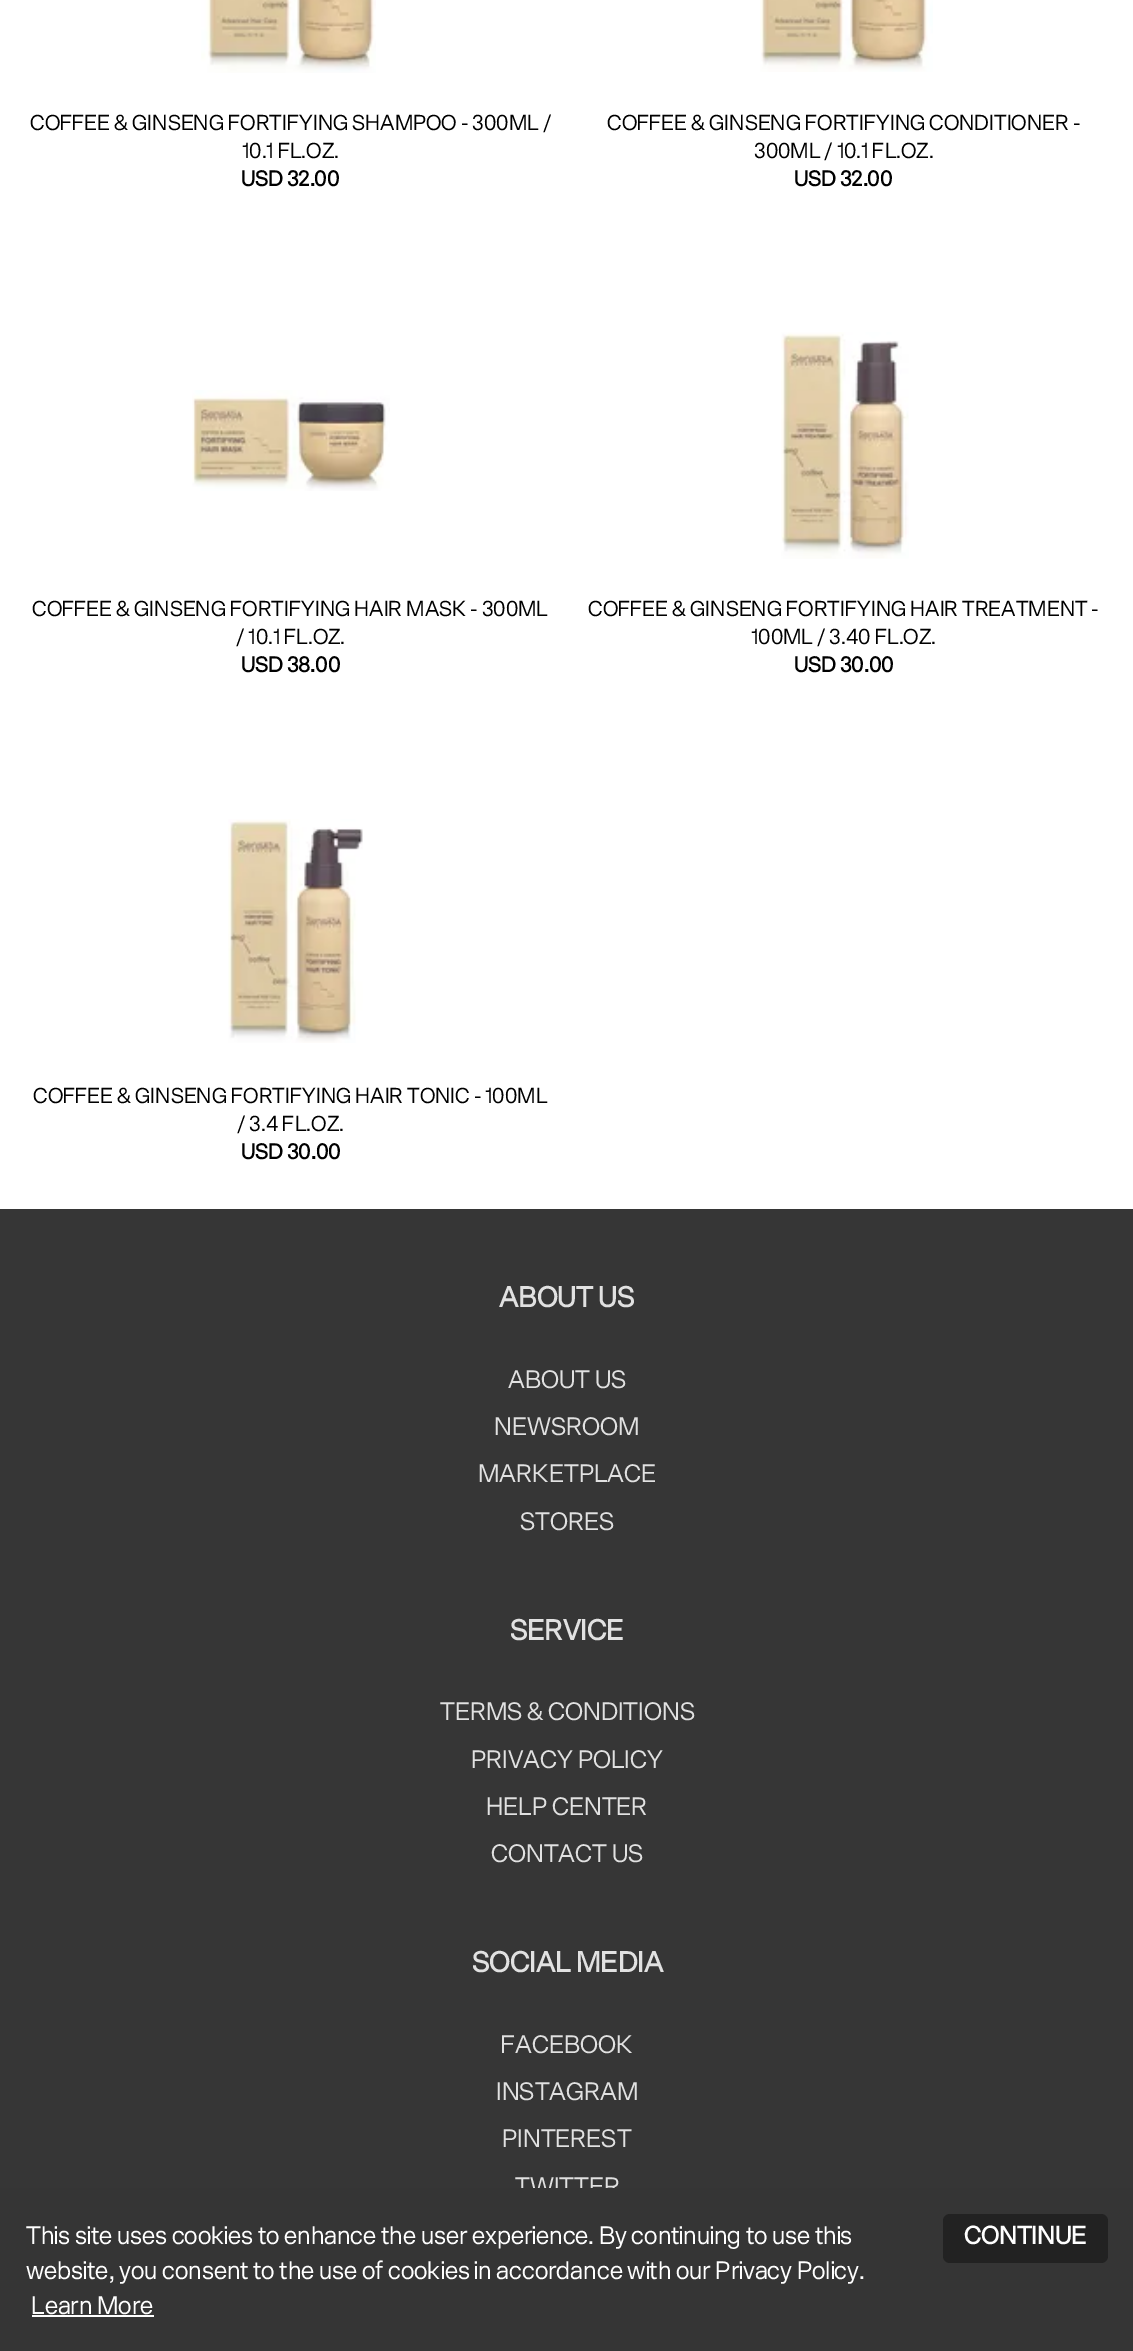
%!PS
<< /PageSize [1133 2351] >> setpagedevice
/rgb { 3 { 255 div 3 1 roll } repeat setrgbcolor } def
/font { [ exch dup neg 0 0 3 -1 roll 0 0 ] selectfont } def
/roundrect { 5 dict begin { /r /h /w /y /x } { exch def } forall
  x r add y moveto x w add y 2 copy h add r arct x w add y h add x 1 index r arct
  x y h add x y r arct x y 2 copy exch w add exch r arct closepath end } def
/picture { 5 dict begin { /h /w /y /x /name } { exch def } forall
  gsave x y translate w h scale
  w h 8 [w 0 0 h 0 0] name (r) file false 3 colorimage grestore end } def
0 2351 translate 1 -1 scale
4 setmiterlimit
255 255 255 rgb
0 0 1133 2351 rectfill
(img/1.rgb) 201 0 175 73 picture
(img/2.rgb) 760 0 173 72 picture
(img/3.rgb) 192 390 198 101 picture
(img/4.rgb) 781 332 128 227 picture
(img/5.rgb) 228 819 135 224 picture
54 54 54 rgb
0 1209 1133 979 rectfill
/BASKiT-Regular 21 font
0 0 0 rgb
30 130 moveto (COFFEE & GINSENG FORTIFYING SHAMPOO - 300ML /) show
242 158 moveto (10.1 FL.OZ.) show
/BASKiT-Bold 21 font
241 186 moveto (USD 32.00) show
/BASKiT-Regular 21 font
607 130 moveto (COFFEE & GINSENG FORTIFYING CONDITIONER -) show
754 158 moveto (300ML / 10.1 FL.OZ.) show
/BASKiT-Bold 21 font
794 186 moveto (USD 32.00) show
/BASKiT-Regular 21 font
32 616 moveto (COFFEE & GINSENG FORTIFYING HAIR MASK - 300ML) show
236 644 moveto (/ 10.1 FL.OZ.) show
/BASKiT-Bold 21 font
241 672 moveto (USD 38.00) show
/BASKiT-Regular 21 font
588 616 moveto (COFFEE & GINSENG FORTIFYING HAIR TREATMENT -) show
751 644 moveto (100ML / 3.40 FL.OZ.) show
/BASKiT-Bold 21 font
794 672 moveto (USD 30.00) show
/BASKiT-Regular 21 font
33 1103 moveto (COFFEE & GINSENG FORTIFYING HAIR TONIC - 100ML) show
237 1131 moveto (/ 3.4 FL.OZ.) show
/BASKiT-Bold 21 font
241 1159 moveto (USD 30.00) show
/BASKiT-Bold 28 font
225 225 225 rgb
499 1307 moveto (ABOUT US) show
/BASKiT-Regular 24.5 font
[
  [(ABOUT US) 508 1388]
  [(NEWSROOM) 494 1435]
  [(MARKETPLACE) 478 1482]
  [(STORES) 520 1530]
] { aload pop moveto show } forall
/BASKiT-Bold 28 font
510 1640 moveto (SERVICE) show
/BASKiT-Regular 24.5 font
[
  [(TERMS & CONDITIONS) 440 1720]
  [(PRIVACY POLICY) 471 1768]
  [(HELP CENTER) 486 1815]
  [(CONTACT US) 491 1862]
] { aload pop moveto show } forall
/BASKiT-Bold 28 font
472 1972 moveto (SOCIAL MEDIA) show
/BASKiT-Regular 24.5 font
[
  [(FACEBOOK) 501 2053]
  [(INSTAGRAM) 496 2100]
  [(PINTEREST) 502 2147]
  [(TWITTER) 515 2195]
] { aload pop moveto show } forall
53 53 53 rgb
0 2188 1133 163 rectfill
255 255 255 rgb
[
  [(This site uses cookies to enhance the user experience. By continuing to use this) 26 2244]
  [(website, you consent to the use of cookies in accordance with our Privacy Policy.) 26 2279]
  [(Learn More) 31 2314]
] { aload pop moveto show } forall
32 2315 122 2 rectfill
34 34 34 rgb
943 2214 165 49 7 roundrect fill
/BASKiT-Bold 24.5 font
255 255 255 rgb
964 2244 moveto (CONTINUE) show
showpage
